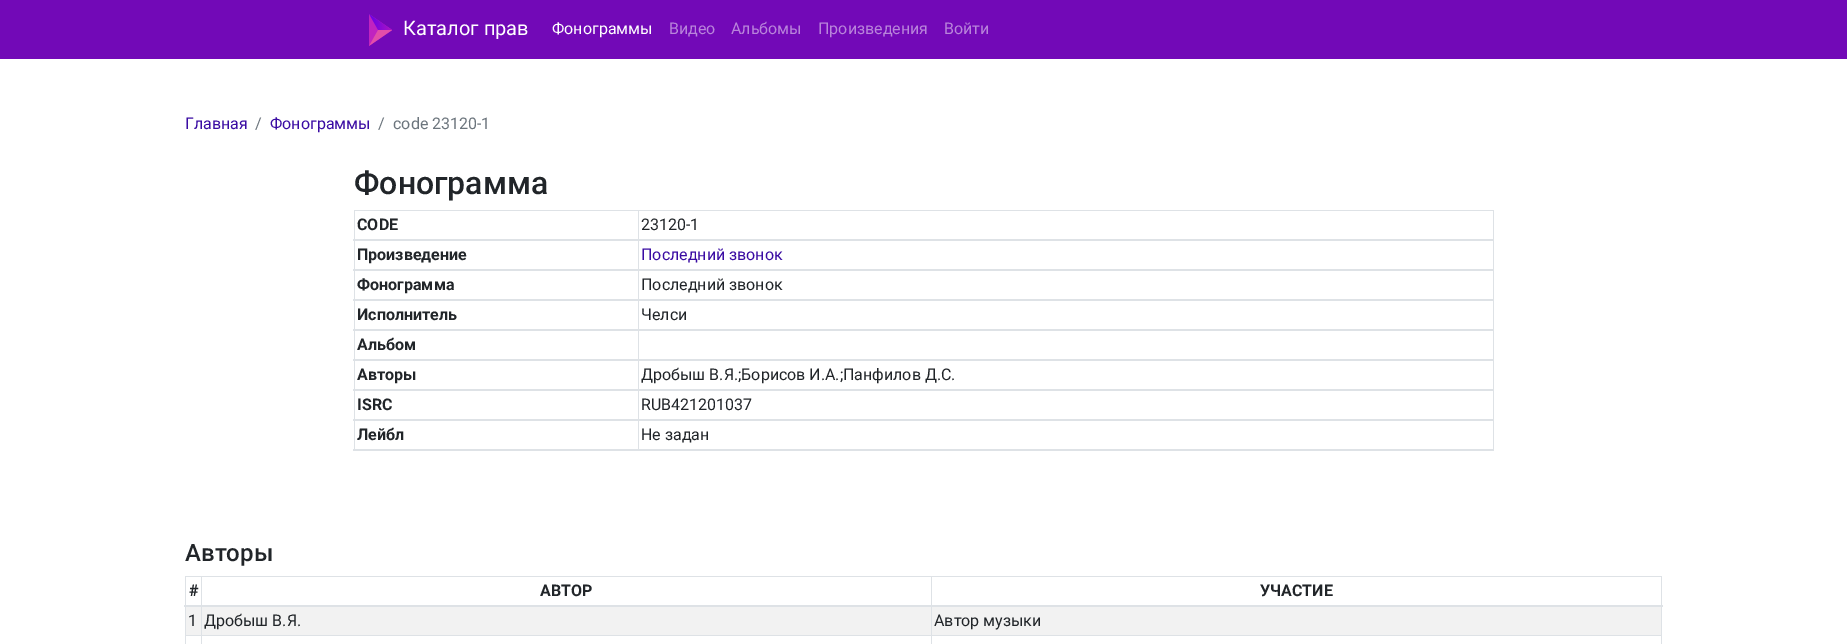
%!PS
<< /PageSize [1847 644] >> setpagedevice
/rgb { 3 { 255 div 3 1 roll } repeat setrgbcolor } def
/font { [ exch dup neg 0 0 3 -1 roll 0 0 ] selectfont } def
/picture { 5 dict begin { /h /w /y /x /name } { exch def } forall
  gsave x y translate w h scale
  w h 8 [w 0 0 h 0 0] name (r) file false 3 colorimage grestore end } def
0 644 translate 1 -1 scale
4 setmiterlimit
255 255 255 rgb
0 0 1847 644 rectfill
114 9 183 rgb
0 0 1847 59 rectfill
(img/1.rgb) 369 14 23 32 picture
[
  [354 210 1140 1 222 226 230]
  [1493 210 1 241 222 226 230]
  [354 210 1 241 222 226 230]
  [638 210 1 241 222 226 230]
  [353 239 1141 2 222 226 230]
  [353 269 1141 2 222 226 230]
  [353 299 1141 2 222 226 230]
  [353 329 1141 2 222 226 230]
  [353 359 1141 2 222 226 230]
  [353 389 1141 2 222 226 230]
  [353 419 1141 2 222 226 230]
  [353 449 1141 2 222 226 230]
  [185 576 1477 1 222 226 230]
  [1661 576 1 68 222 226 230]
  [185 576 1 68 222 226 230]
  [186 607 1475 28 242 242 242]
  [931 635 731 1 222 226 230]
  [931 635 1 9 222 226 230]
  [201 635 731 1 222 226 230]
  [201 635 1 9 222 226 230]
  [185 635 17 1 222 226 230]
  [201 576 1 60 222 226 230]
  [931 576 1 60 222 226 230]
  [184 605 1479 2 222 226 230]
] { aload pop rgb rectfill } forall
/Roboto-Regular 20 font
255 255 255 rgb
403 35 moveto (Каталог прав) show
/Roboto-Regular 16 font
552 34 moveto (Фонограммы) show
185 132 219 rgb
[
  [(Видео) 669 34]
  [(Альбомы) 731 34]
  [(Произведения) 818 34]
  [(Войти) 944 34]
] { aload pop moveto show } forall
58 12 163 rgb
185 129 moveto (Главная) show
108 117 125 rgb
255 129 moveto (/) show
58 12 163 rgb
270 129 moveto (Фонограммы) show
108 117 125 rgb
378 129 moveto (/) show
393 129 moveto (code 23120-1) show
/Roboto-Medium 32 font
33 37 41 rgb
354 194 moveto (Фонограмма) show
/Roboto-Bold 16 font
357 230 moveto (CODE) show
/Roboto-Regular 16 font
641 230 moveto (23120-1) show
/Roboto-Bold 16 font
357 260 moveto (Произведение) show
/Roboto-Regular 16 font
58 12 163 rgb
641 260 moveto (Последний звонок) show
/Roboto-Bold 16 font
33 37 41 rgb
357 290 moveto (Фонограмма) show
/Roboto-Regular 16 font
641 290 moveto (Последний звонок) show
/Roboto-Bold 16 font
357 320 moveto (Исполнитель) show
/Roboto-Regular 16 font
641 320 moveto (Челси) show
/Roboto-Bold 16 font
357 350 moveto (Альбом) show
357 380 moveto (Авторы) show
/Roboto-Regular 16 font
641 380 moveto (Дробыш В.Я.;Борисов И.А.;Панфилов Д.С.) show
/Roboto-Bold 16 font
357 410 moveto (ISRC) show
/Roboto-Regular 16 font
641 410 moveto (RUB421201037) show
/Roboto-Bold 16 font
357 440 moveto (Лейбл) show
/Roboto-Regular 16 font
641 440 moveto (Не задан) show
/Roboto-Medium 24 font
185 561 moveto (Авторы) show
/Roboto-Bold 16 font
[
  [(#) 189 596]
  [(АВТОР) 540 596]
  [(УЧАСТИЕ) 1260 596]
] { aload pop moveto show } forall
/Roboto-Regular 16 font
[
  [(1) 188 626]
  [(Дробыш В.Я.) 204 626]
  [(Автор музыки) 934 626]
] { aload pop moveto show } forall
showpage
